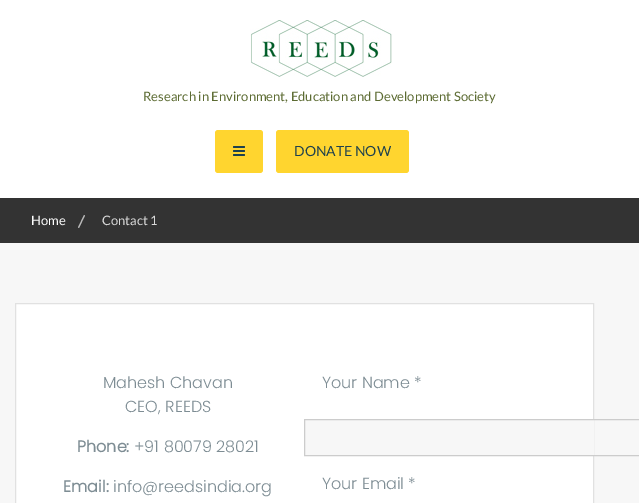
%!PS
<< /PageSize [639 503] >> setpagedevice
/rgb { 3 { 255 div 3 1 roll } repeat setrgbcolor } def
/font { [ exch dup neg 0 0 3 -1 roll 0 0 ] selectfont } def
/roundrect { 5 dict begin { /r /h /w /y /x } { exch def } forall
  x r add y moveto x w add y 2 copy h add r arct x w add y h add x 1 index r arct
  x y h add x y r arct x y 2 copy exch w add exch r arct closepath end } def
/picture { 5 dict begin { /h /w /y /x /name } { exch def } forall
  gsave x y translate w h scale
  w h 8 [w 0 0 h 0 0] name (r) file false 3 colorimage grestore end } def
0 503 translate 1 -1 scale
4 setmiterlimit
247 247 247 rgb
0 0 639 503 rectfill
255 255 255 rgb
0 0 639 198 rectfill
(img/1.rgb) 250 20 142 57 picture
255 213 47 rgb
215 130 48 43 3 roundrect fill
(img/2.rgb) 233 146 12 10 picture
276 130 133 43 3 roundrect fill
51 51 51 rgb
0 198 639 45 rectfill
186 186 186 rgb
84 215 moveto 85 215.5 lineto 79 228 lineto 78 227.5 lineto closepath fill
255 255 255 rgb
15.5 303.5 moveto 593.5 303.5 lineto 593.5 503.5 lineto 15.5 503.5 lineto closepath gsave fill grestore
225 225 225 rgb
stroke
247 247 247 rgb
305 420 289 35 rectfill
204 204 204 rgb
304.5 419.5 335 36 rectstroke
/Lato-Regular 13 font
92 107 50 rgb
143 101 moveto (Research in Environment, Education and Development Society) show
/Lato-Regular 14 font
30 65 78 rgb
294 156 moveto (DONATE NOW) show
/Lato-Regular 13 font
255 255 255 rgb
31 225 moveto (Home) show
217 217 217 rgb
102 225 moveto (Contact 1) show
/Poppins-Light 16 font
126 141 148 rgb
103 388 moveto (Mahesh Chavan) show
125 412 moveto (CEO, REEDS) show
/Poppins-Bold 16 font
77 452 moveto (Phone:) show
/Poppins-Light 16 font
134 452 moveto (+91 80079 28021) show
/Poppins-Bold 16 font
63 492 moveto (Email:) show
/Poppins-Light 16 font
[
  [(info@reedsindia.org) 113 492]
  [(Your Name *) 322 388]
  [(Your Email *) 322 489]
] { aload pop moveto show } forall
showpage
